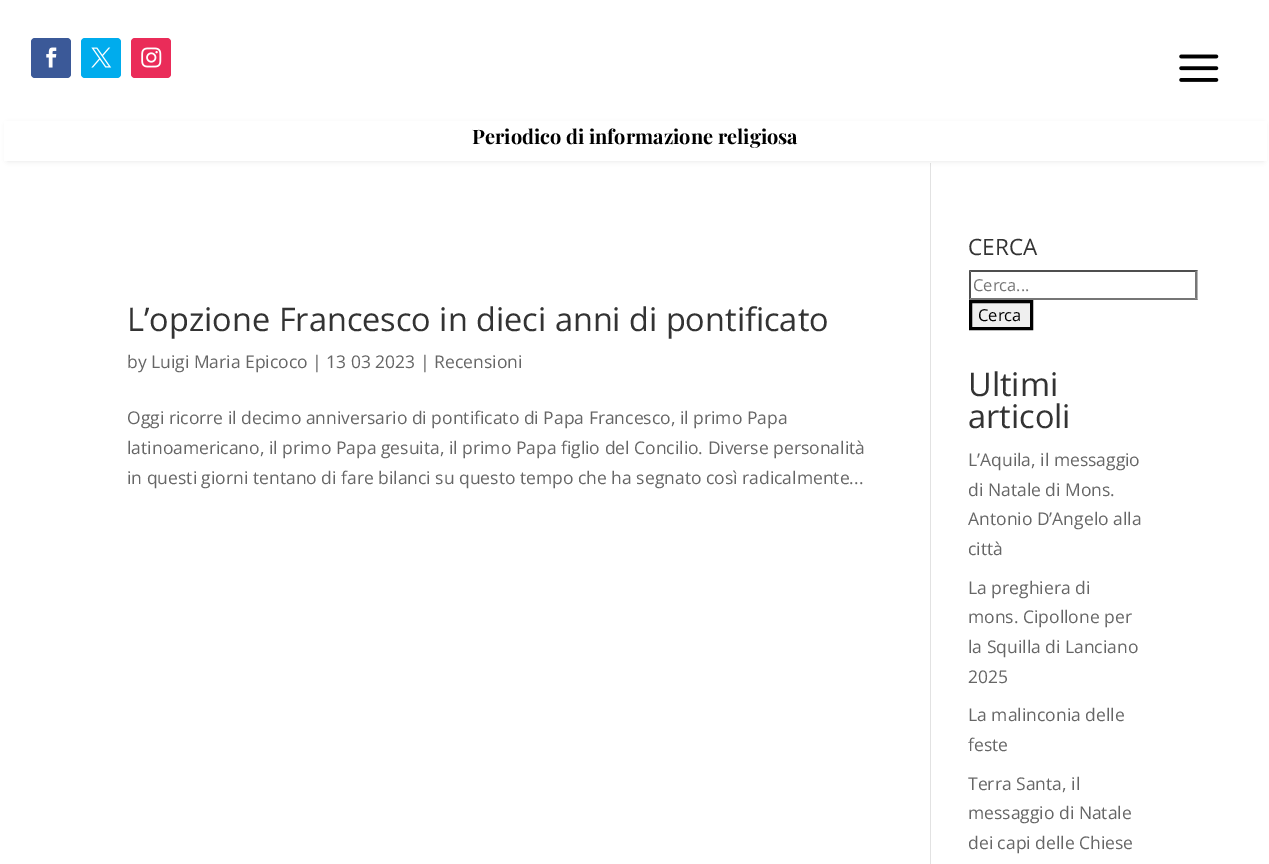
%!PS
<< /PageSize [1269 864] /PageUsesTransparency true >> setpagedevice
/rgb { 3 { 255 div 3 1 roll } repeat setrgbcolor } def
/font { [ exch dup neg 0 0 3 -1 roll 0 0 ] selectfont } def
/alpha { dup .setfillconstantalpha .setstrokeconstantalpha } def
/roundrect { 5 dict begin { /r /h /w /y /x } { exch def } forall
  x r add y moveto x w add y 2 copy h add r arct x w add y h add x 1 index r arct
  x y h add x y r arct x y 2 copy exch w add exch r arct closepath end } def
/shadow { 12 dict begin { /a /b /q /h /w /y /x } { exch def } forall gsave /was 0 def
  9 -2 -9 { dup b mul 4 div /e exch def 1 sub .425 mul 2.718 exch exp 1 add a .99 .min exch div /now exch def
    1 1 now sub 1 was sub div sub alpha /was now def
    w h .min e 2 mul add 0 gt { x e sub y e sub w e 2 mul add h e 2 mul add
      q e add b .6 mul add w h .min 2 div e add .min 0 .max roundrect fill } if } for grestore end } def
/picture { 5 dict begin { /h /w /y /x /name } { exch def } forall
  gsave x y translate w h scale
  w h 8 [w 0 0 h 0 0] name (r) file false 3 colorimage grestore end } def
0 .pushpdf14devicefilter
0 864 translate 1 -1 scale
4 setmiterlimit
255 255 255 rgb
0 0 1269 864 rectfill
59 89 152 rgb
31 38 40 40 4 roundrect fill
(img/1.rgb) 46 47 11 21 picture
0 172 237 rgb
81 38 40 40 4 roundrect fill
(img/2.rgb) 91 47 21 21 picture
234 44 89 rgb
131 38 40 40 4 roundrect fill
(img/3.rgb) 141 47 21 21 picture
(img/4.rgb) 1179 54 40 28 picture
226 226 226 rgb
930 163 1 701 rectfill
0 0 0 rgb
8 125 1255 35 0 3 0.15 shadow
255 255 255 rgb
4 121 1263 40 rectfill
79 79 79 rgb
969 270 moveto 1198 270 lineto 1195 272 lineto 971 272 lineto closepath fill
118 118 118 rgb
1197.5 270 moveto 1197.5 300 lineto 1195 297.5 lineto 1195 272.5 lineto closepath fill
1198 300 moveto 969 300 lineto 971 298 lineto 1195 298 lineto closepath fill
79 79 79 rgb
969 300 moveto 969 270 lineto 971 272.5 lineto 971 297.5 lineto closepath fill
239 239 239 rgb
970.5 301.5 moveto 1031.5 301.5 lineto 1031.5 328.5 lineto 970.5 328.5 lineto closepath gsave fill grestore
0 0 0 rgb
3 setlinewidth
stroke
/PlayfairDisplay-Bold 20 font
472 144 moveto (Periodico di informazione religiosa) show
/OpenSans-Regular 32.5 font
51 51 51 rgb
127 331 moveto (L’opzione Francesco in dieci anni di pontificato) show
/OpenSans-Regular 17.5 font
102 102 102 rgb
[
  [(by Luigi Maria Epicoco | 13 03 2023 | Recensioni) 127 368]
  [(Oggi ricorre il decimo anniversario di pontificato di Papa Francesco, il primo Papa) 127 424]
  [(latinoamericano, il primo Papa gesuita, il primo Papa figlio del Concilio. Diverse personalità) 127 454]
  [(in questi giorni tentano di fare bilanci su questo tempo che ha segnato così radicalmente...) 127 484]
] { aload pop moveto show } forall
/OpenSans-Regular 22.5 font
51 51 51 rgb
968 255 moveto (CERCA) show
/OpenSans-Regular 16.5 font
117 117 117 rgb
973 291 moveto (Cerca...) show
0 0 0 rgb
978 321 moveto (Cerca) show
/OpenSans-Regular 32.5 font
51 51 51 rgb
968 396 moveto (Ultimi) show
968 428 moveto (articoli) show
/OpenSans-Regular 17.5 font
102 102 102 rgb
[
  [(L’Aquila, il messaggio) 968 466]
  [(di Natale di Mons.) 968 496]
  [(Antonio D’Angelo alla) 968 525]
  [(città) 968 555]
  [(La preghiera di) 968 594]
  [(mons. Cipollone per) 968 623]
  [(la Squilla di Lanciano) 968 653]
  [(2025) 968 683]
  [(La malinconia delle) 968 721]
  [(feste) 968 751]
  [(Terra Santa, il) 968 790]
  [(messaggio di Natale) 968 819]
  [(dei capi delle Chiese) 968 849]
] { aload pop moveto show } forall
.poppdf14devicefilter showpage
